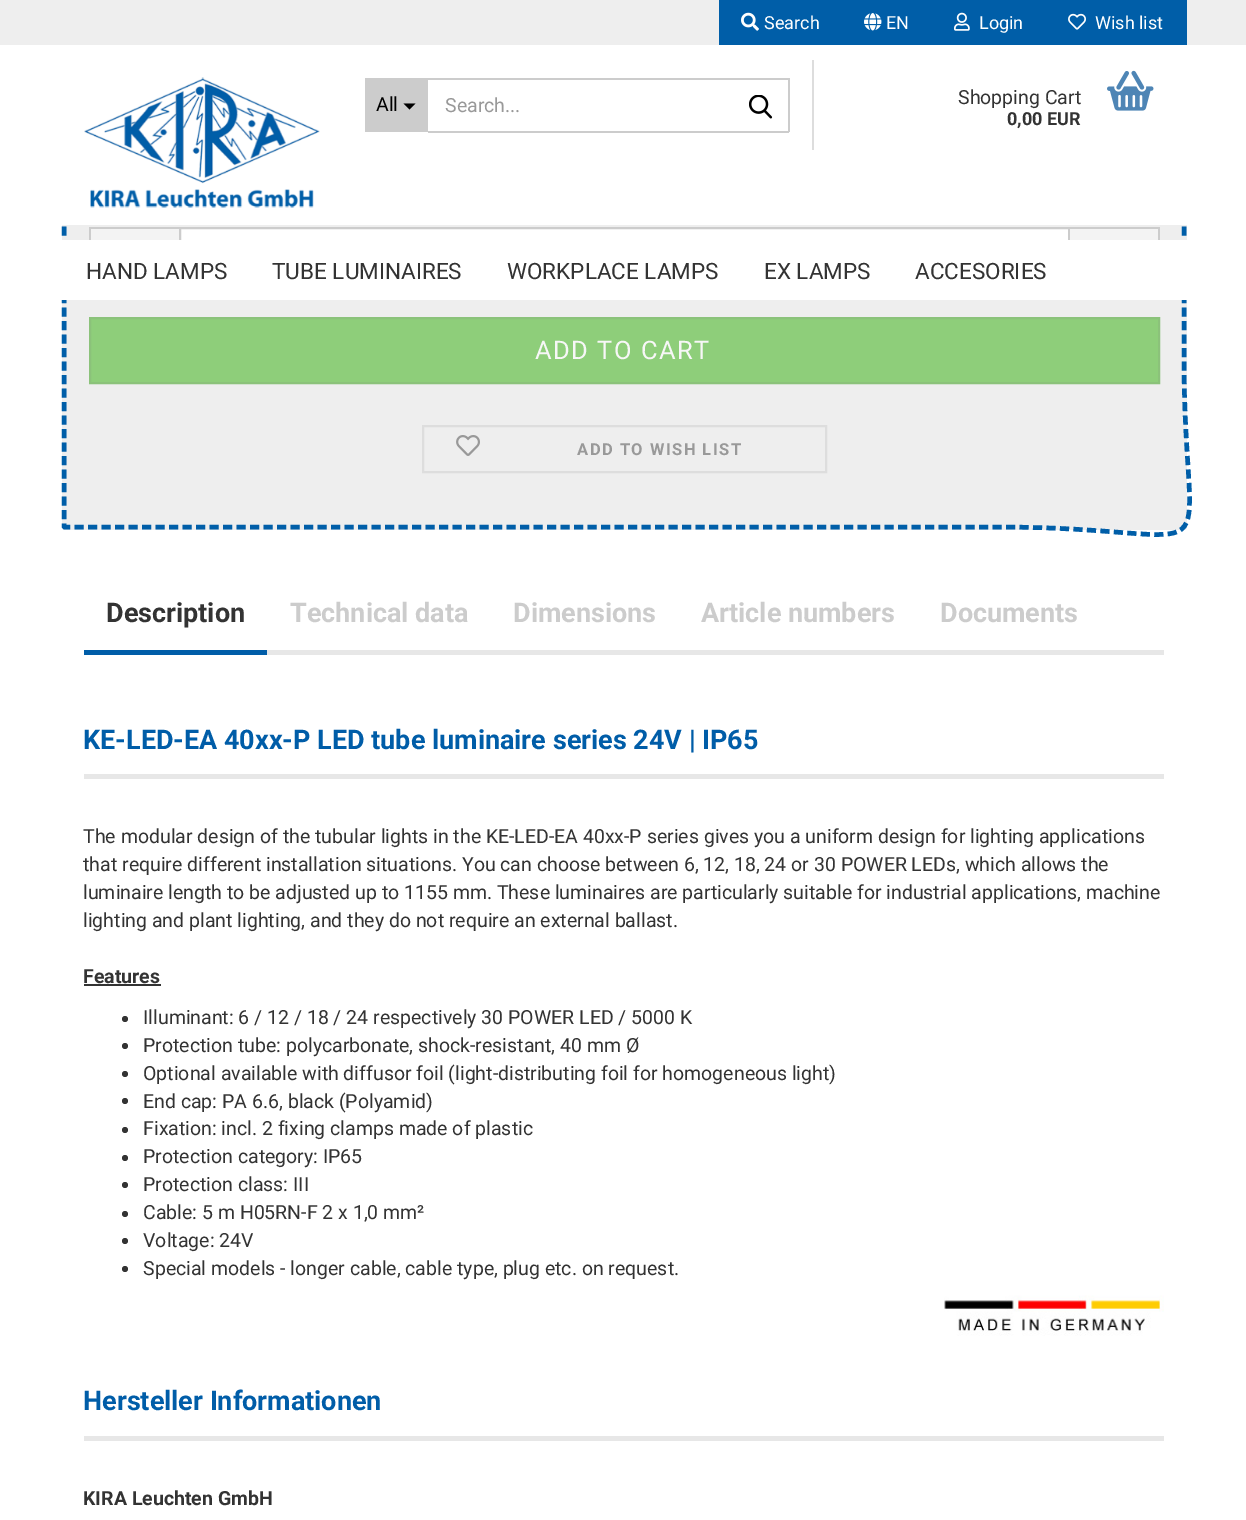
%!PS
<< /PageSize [1246 1520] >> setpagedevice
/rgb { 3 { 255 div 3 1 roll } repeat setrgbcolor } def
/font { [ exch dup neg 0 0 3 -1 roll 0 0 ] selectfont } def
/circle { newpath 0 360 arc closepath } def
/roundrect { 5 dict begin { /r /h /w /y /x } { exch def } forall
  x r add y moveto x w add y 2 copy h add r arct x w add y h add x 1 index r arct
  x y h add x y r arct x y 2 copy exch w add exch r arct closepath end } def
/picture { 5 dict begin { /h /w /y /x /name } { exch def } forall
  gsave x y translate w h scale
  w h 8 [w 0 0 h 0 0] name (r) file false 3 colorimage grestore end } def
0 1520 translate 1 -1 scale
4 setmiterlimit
255 255 255 rgb
0 0 1246 1520 rectfill
238 238 238 rgb
62 -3 1125 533 3 roundrect fill
0 94 168 rgb
4.5 setlinewidth
[9 4.5] 0 setdash
64.5 -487 moveto 997 -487 lineto 1240 -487 1184 -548.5 1184 -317 curveto 1184 358 lineto 1184 589 1240 527 997 527 curveto 64.5 527 lineto 64 526.5 lineto 64 -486 lineto closepath stroke
[
  [61 45 1126 180 255 255 255]
  [0 0 1246 45 238 238 238]
  [719 0 468 45 0 94 168]
] { aload pop rgb rectfill } forall
(img/1.rgb) 741 12 18 19 picture
(img/2.rgb) 864 13 18 18 picture
(img/3.rgb) 954 12 16 19 picture
(img/4.rgb) 1068 13 18 17 picture
(img/5.rgb) 84 77 236 131 picture
204 204 204 rgb
365 78 63 54 rectfill
0 0 0 rgb
403.5 103.5 moveto 415.5 103.5 lineto 409.5 109.5 lineto closepath fill
[
  [428 78 361 2 204 204 204]
  [788 78 2 54 204 204 204]
  [428 131 361 2 204 204 204]
] { aload pop rgb rectfill } forall
(img/6.rgb) 749 95 24 24 picture
221 221 221 rgb
812 60 2 90 rectfill
(img/7.rgb) 1107 70 47 41 picture
255 255 255 rgb
181 229 887 11 rectfill
204 204 204 rgb
2 setlinewidth
[] 0 setdash
180 228 889 65 rectstroke
[
  [61 240 1126 60 255 255 255]
  [91 229 88 11 243 243 243]
  [89 227 90 2 204 204 204]
  [89 227 2 13 204 204 204]
  [1070 229 88 11 243 243 243]
  [1070 227 90 2 204 204 204]
  [1158 227 2 13 204 204 204]
] { aload pop rgb rectfill } forall
142 206 122 rgb
90 318 moveto 1159 318 lineto 1159 383 lineto 90 383 lineto closepath gsave fill grestore
139 194 122 rgb
stroke
221 221 221 rgb
423 426 403 46 rectstroke
(img/8.rgb) 456 435 24 21 picture
[
  [267 650 897 5 231 231 231]
  [84 650 183 5 0 93 168]
  [84 774 1080 5 231 231 231]
  [84 984 77 2 51 51 51]
] { aload pop rgb rectfill } forall
125 1019 3 circle fill
125 1046 3 circle fill
125 1074 3 circle fill
125 1101 3 circle fill
125 1130 3 circle fill
125 1158 3 circle fill
125 1185 3 circle fill
125 1214 3 circle fill
125 1241 3 circle fill
125 1269 3 circle fill
(img/9.rgb) 944 1295 220 41 picture
231 231 231 rgb
84 1436 1080 5 rectfill
/Roboto-Regular 18 font
255 255 255 rgb
[
  [(Search) 764 29]
  [(EN) 886 29]
  [(Login) 979 29]
  [(Wish list) 1095 29]
] { aload pop moveto show } forall
/Roboto-Regular 19.5 font
0 0 0 rgb
376 111 moveto (All) show
153 153 153 rgb
445 112 moveto (Search...) show
51 51 51 rgb
958 104 moveto (Shopping Cart) show
/Roboto-Bold 18 font
1007 125 moveto (0,00 EUR) show
/Roboto-Regular 22.5 font
[
  [(HAND LAMPS) 86 279]
  [(TUBE LUMINAIRES) 272 279]
  [(WORKPLACE LAMPS) 507 279]
  [(EX LAMPS) 764 279]
  [(ACCESORIES) 915 279]
] { aload pop moveto show } forall
/Roboto-Regular 25.5 font
247 247 247 rgb
535 359 moveto 1.5 0 (ADD TO CART) ashow
/Roboto-Bold 16.5 font
153 153 153 rgb
577 455 moveto 1.5 0 (ADD TO WISH LIST) ashow
/Roboto-Bold 27 font
51 51 51 rgb
106 622 moveto (Description) show
204 204 204 rgb
[
  [(Technical data) 290 622]
  [(Dimensions) 513 622]
  [(Article numbers) 701 622]
  [(Documents) 940 622]
] { aload pop moveto show } forall
0 93 168 rgb
83 749 moveto (KE-LED-EA 40xx-P LED tube luminaire series 24V | IP65) show
/Roboto-Regular 19.5 font
51 51 51 rgb
[
  [(The modular design of the tubular lights in the KE-LED-EA 40xx-P series gives you a uniform design for lighting applications) 83 843]
  [(that require different installation situations. You can choose between 6, 12, 18, 24 or 30 POWER LEDs, which allows the) 83 871]
  [(luminaire length to be adjusted up to 1155 mm. These luminaires are particularly suitable for industrial applications, machine) 83 899]
  [(lighting and plant lighting, and they do not require an external ballast.) 83 927]
] { aload pop moveto show } forall
/Roboto-Bold 19.5 font
83 983 moveto (Features) show
/Roboto-Regular 19.5 font
[
  [(Illuminant: 6 / 12 / 18 / 24 respectively 30 POWER LED / 5000 K) 143 1024]
  [(Protection tube: polycarbonate, shock-resistant, 40 mm Ø) 143 1052]
  [(Optional available with diffusor foil \(light-distributing foil for homogeneous light\)) 143 1080]
  [(End cap: PA 6.6, black \(Polyamid\)) 143 1108]
  [(Fixation: incl. 2 fixing clamps made of plastic) 143 1135]
  [(Protection category: IP65) 143 1163]
  [(Protection class: III) 143 1191]
  [(Cable: 5 m H05RN-F 2 x 1,0 mm²) 143 1219]
  [(Voltage: 24V) 143 1247]
  [(Special models - longer cable, cable type, plug etc. on request.) 143 1275]
] { aload pop moveto show } forall
/Roboto-Bold 27 font
0 93 168 rgb
83 1410 moveto (Hersteller Informationen) show
/Roboto-Bold 19.5 font
51 51 51 rgb
83 1505 moveto (KIRA Leuchten GmbH) show
showpage
